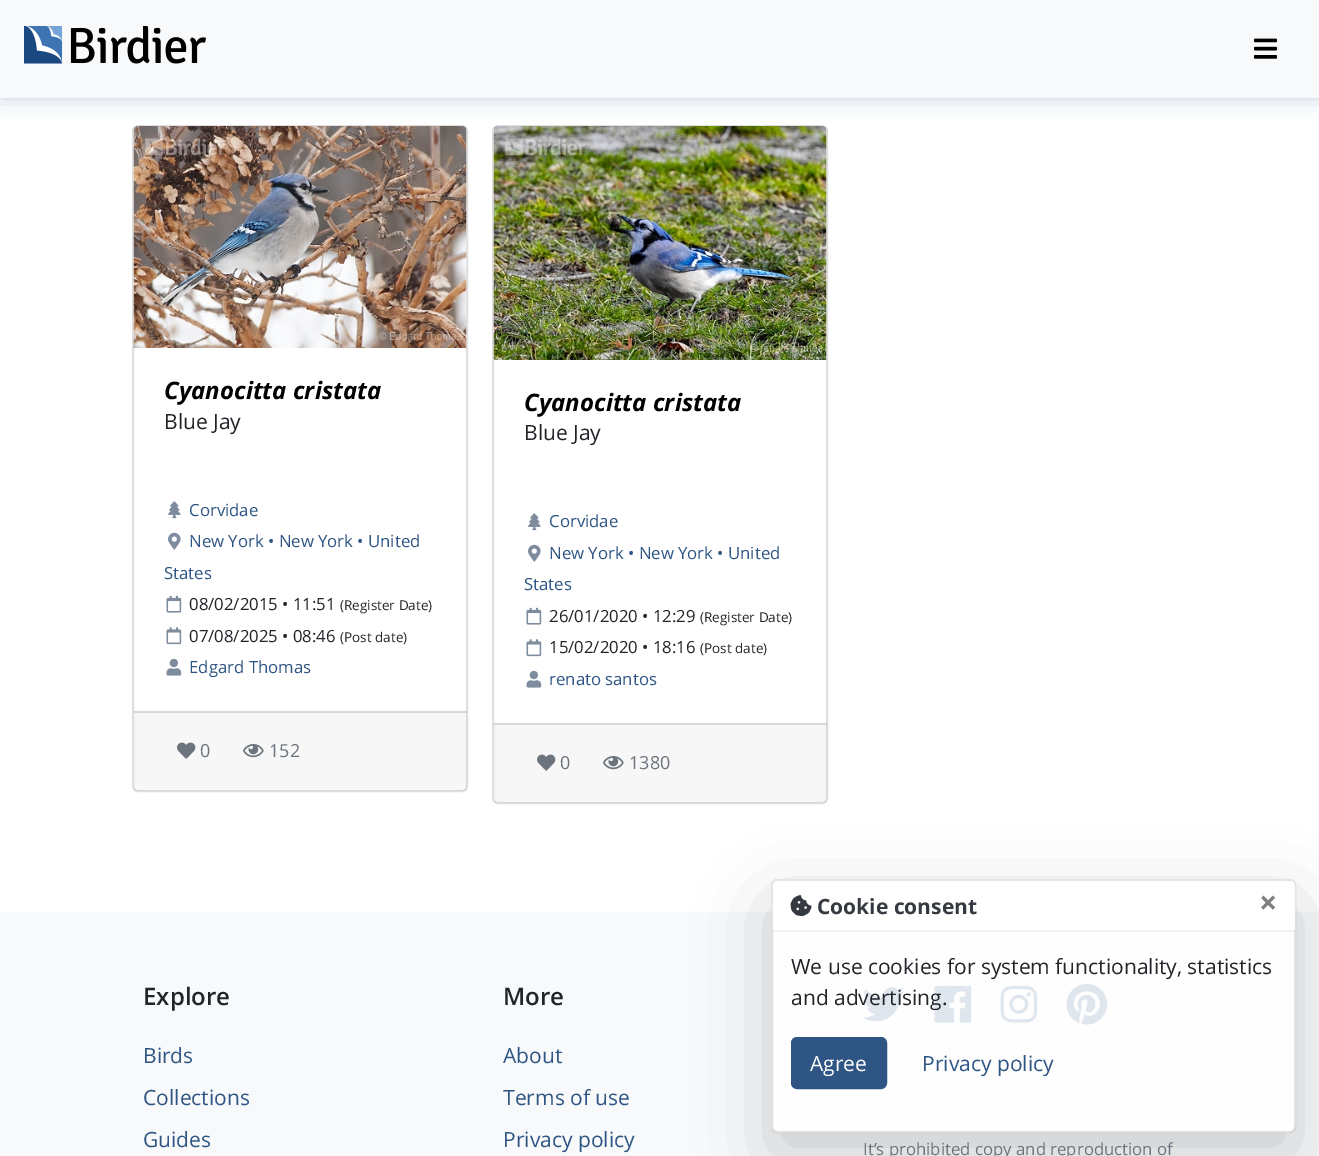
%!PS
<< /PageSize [1319 1156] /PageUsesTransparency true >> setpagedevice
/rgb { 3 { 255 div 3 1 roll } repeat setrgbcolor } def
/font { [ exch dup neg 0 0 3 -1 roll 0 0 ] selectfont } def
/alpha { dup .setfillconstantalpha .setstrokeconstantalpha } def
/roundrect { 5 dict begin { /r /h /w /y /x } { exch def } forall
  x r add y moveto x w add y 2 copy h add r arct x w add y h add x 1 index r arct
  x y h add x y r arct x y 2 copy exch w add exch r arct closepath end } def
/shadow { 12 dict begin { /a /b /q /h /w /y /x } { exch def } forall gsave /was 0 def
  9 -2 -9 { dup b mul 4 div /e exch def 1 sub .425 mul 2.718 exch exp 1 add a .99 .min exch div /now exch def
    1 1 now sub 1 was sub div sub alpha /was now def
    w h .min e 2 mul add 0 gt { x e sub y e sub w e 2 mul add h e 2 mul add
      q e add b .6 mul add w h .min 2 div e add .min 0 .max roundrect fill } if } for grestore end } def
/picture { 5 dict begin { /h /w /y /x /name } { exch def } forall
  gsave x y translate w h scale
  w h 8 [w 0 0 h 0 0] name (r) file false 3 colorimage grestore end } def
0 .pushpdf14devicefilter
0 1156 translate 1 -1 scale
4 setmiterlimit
255 255 255 rgb
0 0 1319 1156 rectfill
223 223 223 rgb
2 setlinewidth
133 126 334 665 5 roundrect stroke
(img/3.rgb) 133 126 334 222 picture
493 126 334 677 5 roundrect stroke
(img/11.rgb) 493 126 334 234 picture
26 72 128 rgb
0 0 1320 98 0 11 0.25 shadow
248 249 250 rgb
0 0 1319 98 rectfill
(img/1.rgb) 24 26 182 38 picture
(img/2.rgb) 1254 38 23 21 picture
(img/4.rgb) 168 501 13 18 picture
(img/5.rgb) 168 532 13 18 picture
(img/6.rgb) 166 595 16 18 picture
(img/7.rgb) 166 627 16 18 picture
(img/8.rgb) 166 658 16 18 picture
0.03 alpha
0 0 0 rgb
134 711 333 80 rectfill
0.12 alpha
134 711 333 2 rectfill
1 alpha
(img/9.rgb) 177 742 19 17 picture
(img/10.rgb) 243 744 21 14 picture
(img/4.rgb) 528 513 13 18 picture
(img/5.rgb) 528 544 13 18 picture
(img/6.rgb) 526 607 16 18 picture
(img/7.rgb) 526 639 16 18 picture
(img/8.rgb) 526 670 16 18 picture
0.03 alpha
494 723 333 80 rectfill
0.12 alpha
494 723 333 2 rectfill
1 alpha
(img/9.rgb) 537 754 19 17 picture
(img/10.rgb) 603 756 21 14 picture
248 249 250 rgb
0 912 1319 244 rectfill
(img/13.rgb) 862 987 43 35 picture
(img/14.rgb) 934 985 38 38 picture
(img/15.rgb) 1000 985 38 38 picture
(img/16.rgb) 1066 983 42 42 picture
gsave
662 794 moveto 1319 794 lineto 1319 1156 lineto 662 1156 lineto closepath 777 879 moveto 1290 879 lineto 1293.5 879 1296 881.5 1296 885 curveto 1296 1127 lineto 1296 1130.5 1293.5 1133 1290 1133 curveto 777 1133 lineto 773.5 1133 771 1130.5 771 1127 curveto 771 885 lineto 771 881.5 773.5 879 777 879 curveto closepath eoclip newpath
0 0 0 rgb
771 903 525 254 6 36 0.18 shadow
grestore
0.85 alpha
255 255 255 rgb
773 881 522 250 5 roundrect fill
0.1 alpha
0 0 0 rgb
772 880 523 252 5 roundrect stroke
0.85 alpha
255 255 255 rgb
778 881 moveto 1290 881 lineto 1293 881 1295 883 1295 886 curveto 1295 930 lineto 773 930 lineto 773 886 lineto 773 883 775 881 778 881 curveto closepath fill
0.05 alpha
0 0 0 rgb
773 930 522 2 rectfill
1 alpha
(img/12.rgb) 790 895 22 22 picture
46 85 132 rgb
792 1038 94 50 5 roundrect gsave fill grestore
stroke
/OpenSans-BoldItalic 24 font
0 0 0 rgb
164 399 moveto (Cyanocitta cristata) show
/OpenSans-Regular 21 font
33 37 41 rgb
164 429 moveto (Blue Jay) show
/OpenSans-Regular 16.75 font
46 85 132 rgb
[
  [(Corvidae) 189 516]
  [(New York • New York • United) 189 547]
  [(States) 164 579]
] { aload pop moveto show } forall
33 37 41 rgb
189 610 moveto (08/02/2015 • 11:51) show
/OpenSans-Regular 13.5 font
340 610 moveto (\(Register Date\)) show
/OpenSans-Regular 16.75 font
189 642 moveto (07/08/2025 • 08:46) show
/OpenSans-Regular 13.5 font
340 642 moveto (\(Post date\)) show
/OpenSans-Regular 16.75 font
46 85 132 rgb
189 673 moveto (Edgard Thomas) show
/OpenSans-Regular 18 font
108 117 125 rgb
200 757 moveto (0) show
269 757 moveto (152) show
/OpenSans-BoldItalic 24 font
0 0 0 rgb
524 411 moveto (Cyanocitta cristata) show
/OpenSans-Regular 21 font
33 37 41 rgb
524 440 moveto (Blue Jay) show
/OpenSans-Regular 16.75 font
46 85 132 rgb
[
  [(Corvidae) 549 527]
  [(New York • New York • United) 549 559]
  [(States) 524 590]
] { aload pop moveto show } forall
33 37 41 rgb
549 622 moveto (26/01/2020 • 12:29) show
/OpenSans-Regular 13.5 font
700 622 moveto (\(Register Date\)) show
/OpenSans-Regular 16.75 font
549 653 moveto (15/02/2020 • 18:16) show
/OpenSans-Regular 13.5 font
700 653 moveto (\(Post date\)) show
/OpenSans-Regular 16.75 font
46 85 132 rgb
549 685 moveto (renato santos) show
/OpenSans-Regular 18 font
108 117 125 rgb
560 769 moveto (0) show
629 769 moveto (1380) show
/OpenSans-Bold 21 font
52 58 64 rgb
817 914 moveto (Cookie consent) show
/OpenSans-Bold 32 font
128 128 128 rgb
1259 914 moveto (×) show
/OpenSans-Regular 21 font
33 37 41 rgb
791 974 moveto (We use cookies for system functionality, statistics) show
791 1005 moveto (and advertising.) show
255 255 255 rgb
810 1071 moveto (Agree) show
46 85 132 rgb
922 1071 moveto (Privacy policy) show
/OpenSans-SemiBold 24 font
33 37 41 rgb
143 1005 moveto (Explore) show
/OpenSans-Regular 21 font
46 85 132 rgb
[
  [(Birds) 143 1063]
  [(Collections) 143 1105]
  [(Guides) 143 1147]
] { aload pop moveto show } forall
/OpenSans-SemiBold 24 font
33 37 41 rgb
503 1005 moveto (More) show
/OpenSans-Regular 21 font
46 85 132 rgb
[
  [(About) 503 1063]
  [(Terms of use) 503 1105]
  [(Privacy policy) 503 1147]
] { aload pop moveto show } forall
/OpenSans-Regular 16.75 font
108 117 125 rgb
863 1155 moveto (It’s prohibited copy and reproduction of) show
.poppdf14devicefilter showpage
